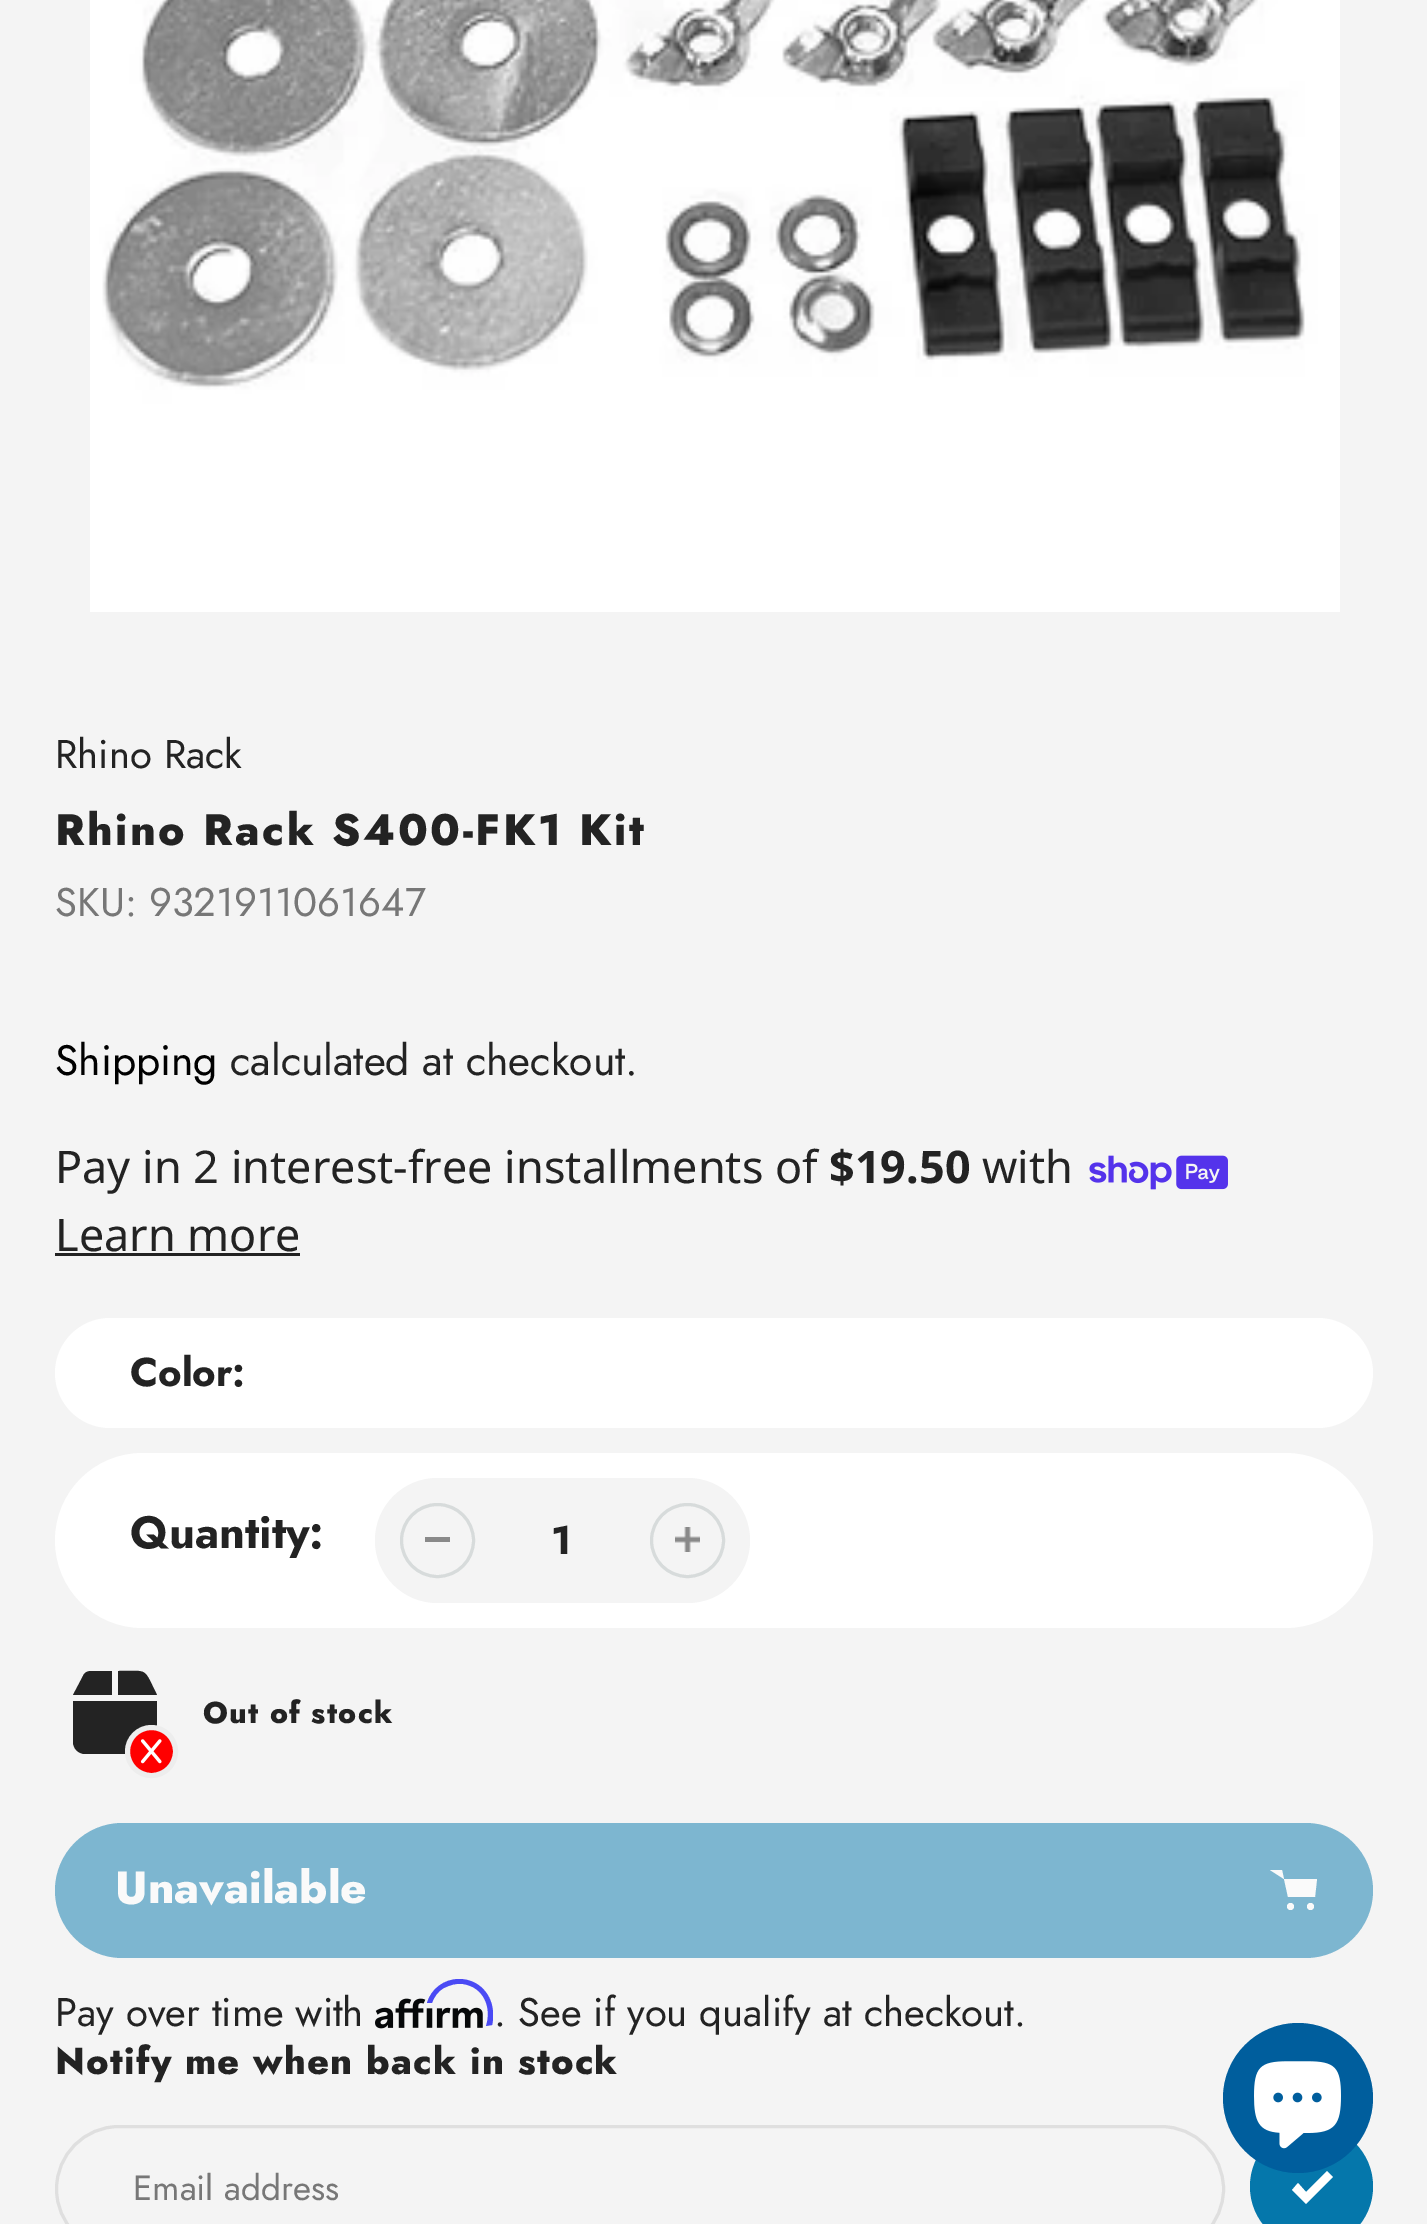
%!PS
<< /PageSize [1427 2224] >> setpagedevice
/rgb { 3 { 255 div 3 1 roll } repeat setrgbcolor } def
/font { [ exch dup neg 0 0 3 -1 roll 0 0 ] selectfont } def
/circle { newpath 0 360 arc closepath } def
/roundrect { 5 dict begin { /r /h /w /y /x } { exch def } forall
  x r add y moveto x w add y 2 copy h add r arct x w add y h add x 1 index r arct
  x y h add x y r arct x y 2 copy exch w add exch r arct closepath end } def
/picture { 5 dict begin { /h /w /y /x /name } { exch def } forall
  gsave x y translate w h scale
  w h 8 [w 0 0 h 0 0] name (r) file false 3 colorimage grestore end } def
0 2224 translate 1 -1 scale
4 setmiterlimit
244 244 244 rgb
0 0 1427 2224 rectfill
(img/1.rgb) 90 0 1250 612 picture
(img/2.rgb) 1089 1155 139 35 picture
35 35 35 rgb
55 1253 245 3 rectfill
255 255 255 rgb
55 1318 1318 110 55 roundrect fill
55 1453 1318 175 87.5 roundrect fill
244 244 244 rgb
375 1478 375 125 62.5 roundrect fill
137 137 137 rgb
425 1537 25 5 rectfill
215 219 219 rgb
3 setlinewidth
437.5 1540.5 36 circle stroke
(img/3.rgb) 675 1527 25 25 picture
687.5 1540.5 36 circle stroke
35 35 35 rgb
83 1676 moveto 73 1695 lineto 112 1695 lineto 112 1671 lineto 91 1671 lineto 87 1671 84 1673 83 1676 curveto closepath 118 1695 moveto 157 1695 lineto 143 1667 149 1671 118 1671 curveto closepath 157 1701 moveto 73 1701 lineto 73 1742 lineto 73 1749 79 1754 85 1754 curveto 145 1754 lineto 151 1754 157 1749 157 1742 curveto closepath fill
255 0 0 rgb
151.5 1751.5 24 circle gsave fill grestore
237 237 237 rgb
5 setlinewidth
stroke
(img/4.rgb) 140 1739 22 25 picture
125 182 208 rgb
55 1823 1318 135 67.5 roundrect fill
250 250 250 rgb
1290.5 1906.5 3.5 circle fill
1310.5 1906.5 3.5 circle fill
1284 1879 moveto 1317 1879 lineto 1315 1897 lineto 1288 1897 lineto 1282 1870 lineto 1270 1870 lineto eofill
(img/5.rgb) 375 1998 108 31 picture
74 74 244 rgb
459 1979 moveto 444 1979 431 1989 427 2003 curveto 432 2003 lineto 434 1997 438 1991 444 1988 curveto 450 1985 456 1983 463 1984 curveto 484 1987 492 2008 486 2026 curveto 492 2025 lineto 493 2023 493 2017 493 2014 curveto 493 1995 479 1979 459 1979 curveto closepath fill
223 223 223 rgb
3 setlinewidth
56.5 2126.5 1167 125 62.5 roundrect stroke
5 119 171 rgb
1311.5 2186.5 61.5 circle fill
255 255 255 rgb
1306 2204 moveto 1292 2190 lineto 1298 2183 lineto 1306 2192 lineto 1327 2171 lineto 1333 2177 lineto closepath fill
0 94 157 rgb
1298 2098 75 circle fill
(img/6.rgb) 1254 2061 87 88 picture
/Jost-Regular 40 font
35 35 35 rgb
55 768 moveto (Rhino Rack) show
/Jost-ExtraBold 44 font
55 845 moveto 2.5 0 (Rhino Rack S400-FK1 Kit) ashow
/Jost-Regular 40 font
119 119 119 rgb
55 916 moveto (SKU: 9321911061647) show
/Jost-Regular 42.5 font
0 0 0 rgb
55 1075 moveto (Shipping) show
35 35 35 rgb
230 1075 moveto (calculated at checkout.) show
/NotoSans-Regular 45 font
55 1183 moveto (Pay in 2 interest-free installments of) show
/NotoSans-Bold 45 font
829 1183 moveto ($19.50) show
/NotoSans-Regular 45 font
982 1183 moveto (with) show
55 1251 moveto (Learn more) show
/Jost-Bold 40 font
130 1386 moveto (Color:) show
/Jost-Bold 45 font
130 1548 moveto (Quantity:) show
/Jost-Bold 40 font
551 1554 moveto (1) show
/Jost-ExtraBold 30 font
203 1723 moveto 1.25 0 (Out of stock) ashow
/Jost-ExtraBold 45 font
250 250 250 rgb
115 1903 moveto (Unavailable) show
/Jost-Regular 40 font
35 35 35 rgb
55 2026 moveto (Pay over time with) show
494 2026 moveto (. See if you qualify at checkout.) show
/Jost-ExtraBold 37.5 font
55 2074 moveto 1.25 0 (Notify me when back in stock) ashow
/Jost-Regular 35 font
119 119 119 rgb
133 2200 moveto (Email address) show
showpage
